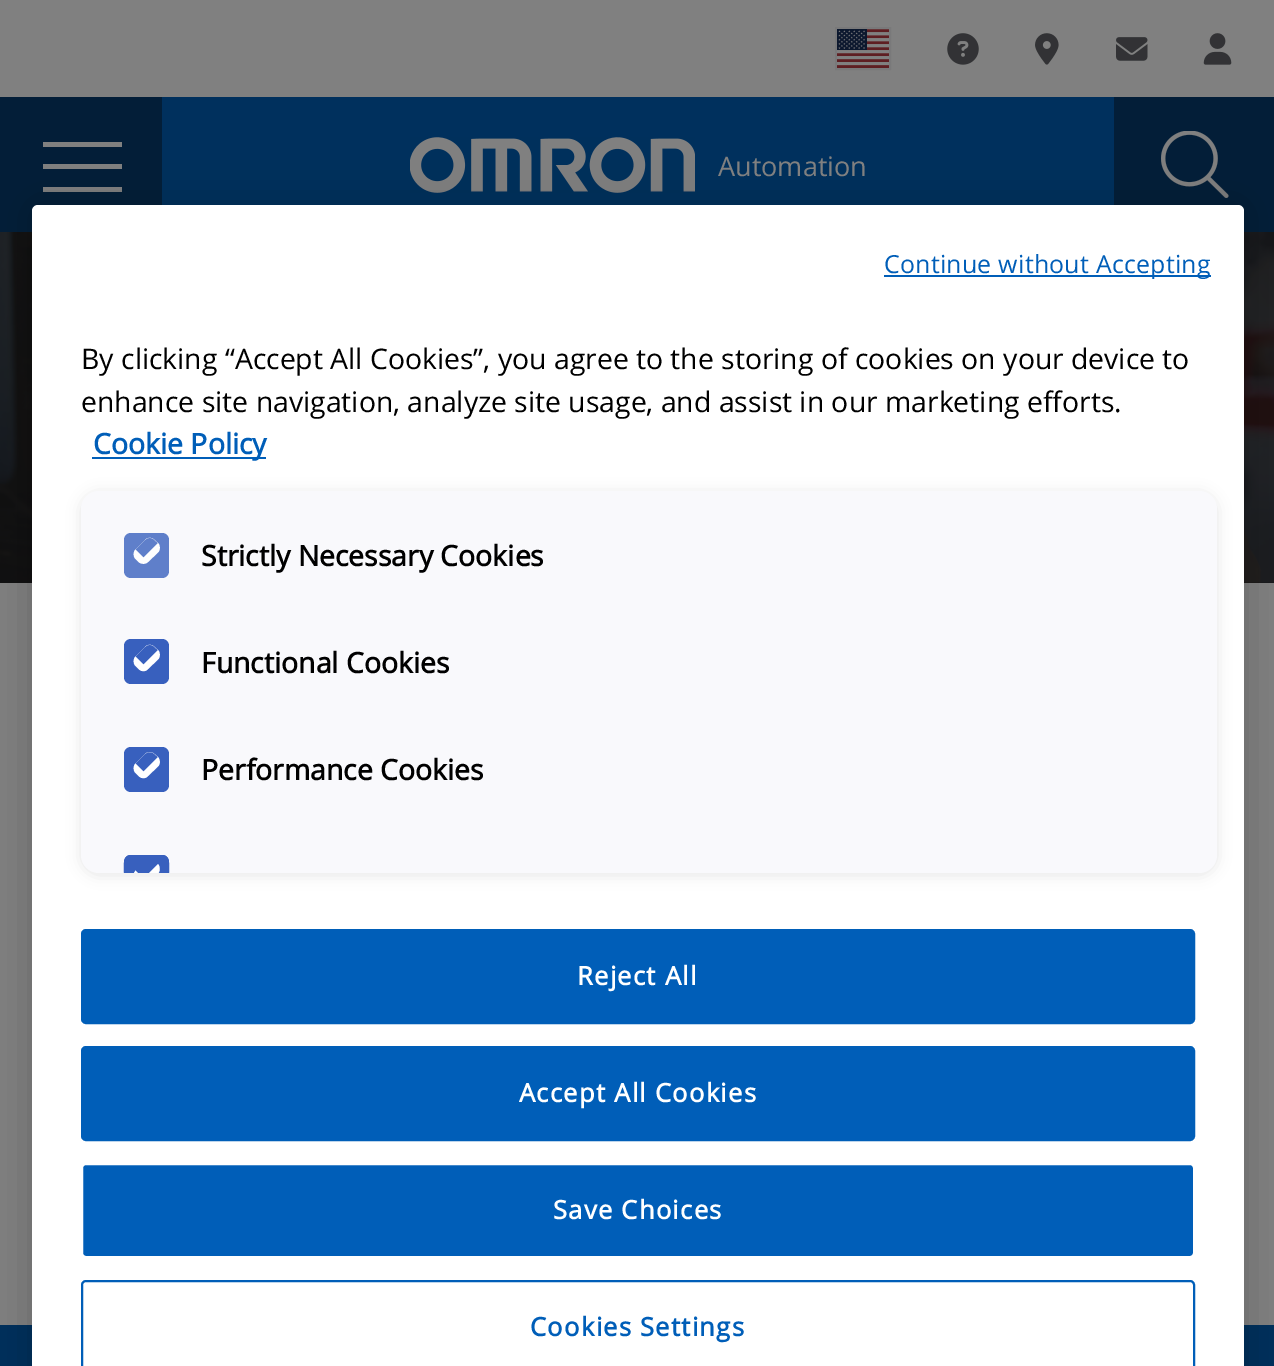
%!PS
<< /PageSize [1274 1366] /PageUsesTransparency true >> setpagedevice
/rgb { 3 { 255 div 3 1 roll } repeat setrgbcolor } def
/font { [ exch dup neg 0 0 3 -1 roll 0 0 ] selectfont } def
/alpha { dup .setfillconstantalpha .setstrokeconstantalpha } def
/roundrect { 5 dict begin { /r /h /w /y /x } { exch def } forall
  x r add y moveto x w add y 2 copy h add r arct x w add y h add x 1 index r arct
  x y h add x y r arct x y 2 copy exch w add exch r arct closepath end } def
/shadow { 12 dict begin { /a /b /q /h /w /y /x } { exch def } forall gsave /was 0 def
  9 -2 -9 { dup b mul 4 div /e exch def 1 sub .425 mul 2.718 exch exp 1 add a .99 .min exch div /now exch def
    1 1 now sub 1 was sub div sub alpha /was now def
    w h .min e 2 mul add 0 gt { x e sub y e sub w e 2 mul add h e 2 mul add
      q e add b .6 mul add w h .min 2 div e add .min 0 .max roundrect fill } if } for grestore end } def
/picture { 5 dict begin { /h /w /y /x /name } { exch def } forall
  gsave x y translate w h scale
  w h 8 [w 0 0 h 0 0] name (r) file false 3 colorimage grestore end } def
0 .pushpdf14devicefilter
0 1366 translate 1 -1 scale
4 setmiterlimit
128 128 128 rgb
0 0 1274 1366 rectfill
121 121 122 rgb
2 setlinewidth
836 28 54 41 rectstroke
(img/1.rgb) 837 29 52 39 picture
(img/2.rgb) 947 33 32 32 picture
(img/3.rgb) 1035 33 24 32 picture
(img/4.rgb) 1116 37 32 24 picture
(img/5.rgb) 1203 33 29 32 picture
[
  [162 97 952 108 0 48 93]
  [0 97 162 135 3 30 56]
  [43 142 79 5 128 128 128]
  [43 164 79 5 128 128 128]
  [43 187 79 5 128 128 128]
] { aload pop rgb rectfill } forall
(img/6.rgb) 410 137 285 56 picture
3 30 56 rgb
1114 97 160 135 rectfill
(img/7.rgb) 1161 131 68 67 picture
20 20 20 rgb
0 582 1274 1 rectfill
(img/8.rgb) 0 232 1274 351 picture
0 47 92 rgb
0 1325 1274 41 rectfill
0 0 0 rgb
32 205 1212 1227 6 20 0.2 shadow
255 255 255 rgb
32 205 1212 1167 6 roundrect fill
0 94 184 rgb
884 275 327 2 rectfill
92 457 174 2 rectfill
0 0 0 rgb
81 493 1136 382 18 7 0.1 shadow
249 249 252 rgb
81 491 1136 382 18 roundrect fill
95 127 202 rgb
131 533 moveto 162 533 lineto 166 533 169 536 169 540 curveto 169 571 lineto 169 575 166 578 162 578 curveto 131 578 lineto 127 578 124 575 124 571 curveto 124 540 lineto 124 536 127 533 131 533 curveto closepath fill
254 254 254 rgb
135.5 549.5 moveto 145 540 lineto 147.5 537 152 537 154.5 540 curveto 158 543 lineto 160.5 545.5 160.5 550 158 552.5 curveto 148 562 lineto 145.5 564.5 141.5 564.5 138.5 562 curveto 135.5 559 lineto 133 556.5 133 552 135.5 549.5 curveto closepath 135.5 549.5 moveto 145 540 lineto 147.5 537 152 537 154.5 540 curveto 158 543 lineto 143.5 557.5 lineto closepath eofill
56 96 190 rgb
131 639 moveto 162 639 lineto 166 639 169 642 169 646 curveto 169 677 lineto 169 681 166 684 162 684 curveto 131 684 lineto 127 684 124 681 124 677 curveto 124 646 lineto 124 642 127 639 131 639 curveto closepath fill
255 255 255 rgb
135.5 656.5 moveto 145 647 lineto 147.5 644 152 644 154.5 647 curveto 158 650 lineto 160.5 652.5 160.5 657 158 659.5 curveto 148 669 lineto 145.5 672 141.5 672 138.5 669 curveto 135.5 666 lineto 133 663.5 133 659 135.5 656.5 curveto closepath 135.5 656.5 moveto 145 647 lineto 147.5 644 152 644 154.5 647 curveto 158 650 lineto 143.5 664.5 lineto closepath eofill
56 96 190 rgb
131 747 moveto 162 747 lineto 166 747 169 750 169 754 curveto 169 785 lineto 169 789 166 792 162 792 curveto 131 792 lineto 127 792 124 789 124 785 curveto 124 754 lineto 124 750 127 747 131 747 curveto closepath fill
255 255 255 rgb
135.5 763.5 moveto 145 754 lineto 147.5 751.5 152 751.5 154.5 754 curveto 158 757 lineto 160.5 760 160.5 764 158 766.5 curveto 148 776 lineto 145.5 779 141.5 779 138.5 776 curveto 135.5 773 lineto 133 770.5 133 766 135.5 763.5 curveto closepath 135.5 763.5 moveto 145 754 lineto 147.5 751.5 152 751.5 154.5 754 curveto 158 757 lineto 143.5 771.5 lineto closepath eofill
56 96 190 rgb
131 855 moveto 162 855 lineto 166 855 169 858 169 862 curveto 169 873 lineto 124 873 lineto 124 862 lineto 124 858 127 855 131 855 curveto closepath fill
131 855 moveto 122 855 124 867 124 873 curveto 169 873 lineto 169 867 171 855 162 855 curveto closepath fill
255 255 255 rgb
158.5 873 moveto 160.5 870 160 866.5 158 864 curveto 149 873 lineto closepath 135.5 870.5 moveto 138 873 lineto 134 873 lineto closepath eofill
0 94 184 rgb
82 930 1112 93 4 roundrect gsave fill grestore
stroke
82 1047 1112 93 4 roundrect gsave fill grestore
stroke
82 1164 1112 93 4 roundrect gsave fill grestore
255 255 255 rgb
stroke
0 94 184 rgb
82 1281 1112 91 4 roundrect stroke
/OpenSans-Regular 27 font
128 128 128 rgb
718 176 moveto (Automation) show
/OpenSans-Regular 24.9 font
0 94 184 rgb
884 273 moveto 0.25 0 (Continue without Accepting) ashow
/OpenSans-Regular 28.35 font
0 0 0 rgb
81 369 moveto (By clicking “Accept All Cookies”, you agree to the storing of cookies on your device to) show
81 412 moveto (enhance site navigation, analyze site usage, and assist in our marketing efforts.) show
/OpenSans-Bold 28.35 font
0 94 184 rgb
93 454 moveto (Cookie Policy) show
0 0 0 rgb
[
  [(Strictly Necessary Cookies) 201 566]
  [(Functional Cookies) 201 673]
  [(Performance Cookies) 201 780]
] { aload pop moveto show } forall
/OpenSans-Bold 25.6 font
255 255 255 rgb
577 985 moveto 1.25 0 (Reject All) ashow
519 1102 moveto 1.25 0 (Accept All Cookies) ashow
553 1219 moveto 1.25 0 (Save Choices) ashow
0 94 184 rgb
530 1336 moveto 1.25 0 (Cookies Settings) ashow
.poppdf14devicefilter showpage
